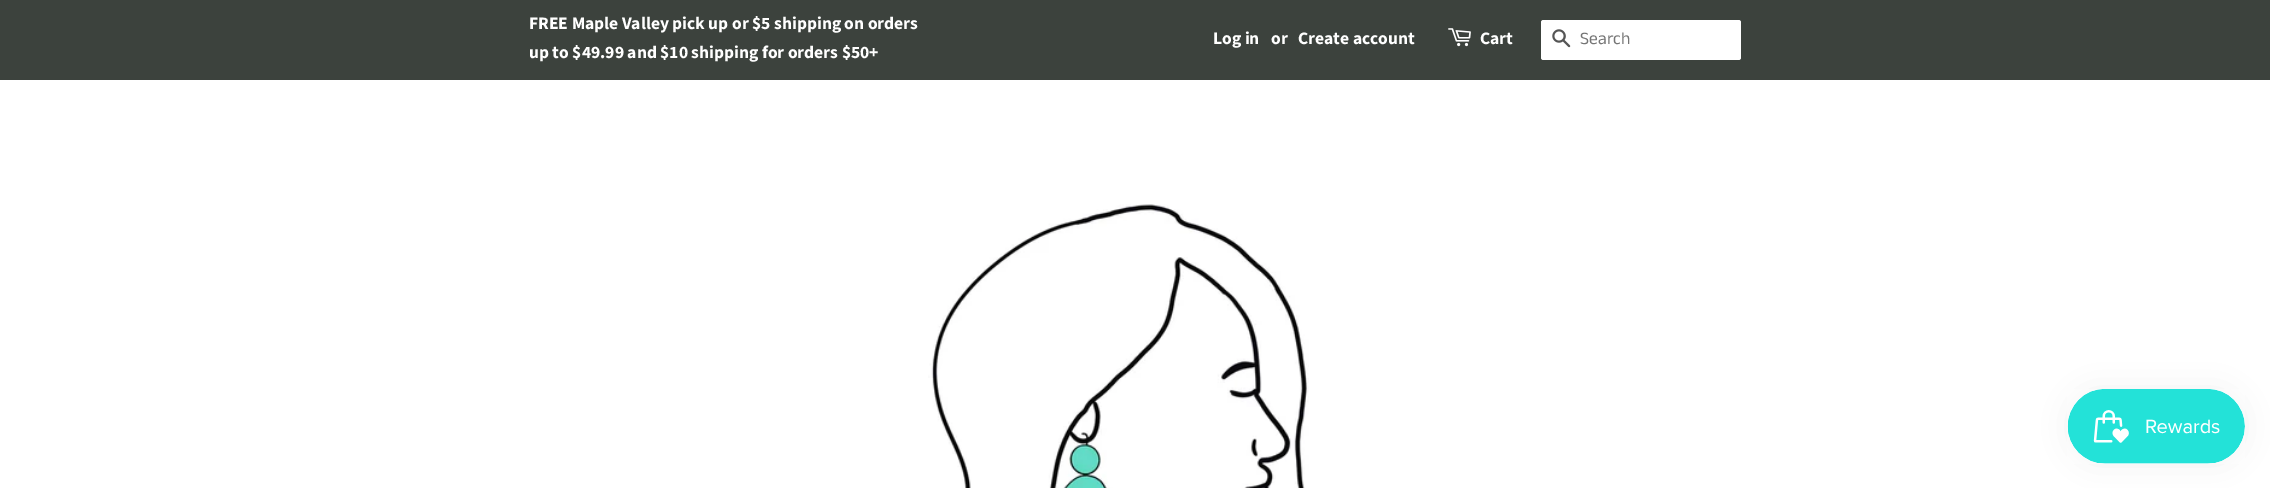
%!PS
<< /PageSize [2270 488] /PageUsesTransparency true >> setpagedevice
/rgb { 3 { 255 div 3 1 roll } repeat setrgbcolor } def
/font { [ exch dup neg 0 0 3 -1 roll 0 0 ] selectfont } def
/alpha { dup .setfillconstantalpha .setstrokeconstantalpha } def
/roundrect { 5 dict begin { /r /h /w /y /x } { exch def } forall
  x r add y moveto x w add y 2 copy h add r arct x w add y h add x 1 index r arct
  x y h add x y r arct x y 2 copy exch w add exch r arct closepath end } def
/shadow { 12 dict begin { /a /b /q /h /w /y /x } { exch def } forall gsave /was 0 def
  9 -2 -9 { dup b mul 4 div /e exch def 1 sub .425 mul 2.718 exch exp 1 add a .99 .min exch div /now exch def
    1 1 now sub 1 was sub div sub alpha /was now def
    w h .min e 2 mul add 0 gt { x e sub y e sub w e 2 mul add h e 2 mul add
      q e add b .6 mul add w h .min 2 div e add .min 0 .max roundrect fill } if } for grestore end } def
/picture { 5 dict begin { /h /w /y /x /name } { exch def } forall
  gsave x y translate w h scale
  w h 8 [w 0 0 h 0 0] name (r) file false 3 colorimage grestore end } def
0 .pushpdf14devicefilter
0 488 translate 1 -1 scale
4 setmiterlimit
255 255 255 rgb
0 0 2270 488 rectfill
60 66 61 rgb
0 0 2270 80 rectfill
(img/1.rgb) 1448 28 23 19 picture
255 255 255 rgb
1541 20 200 40 2.5 roundrect fill
(img/2.rgb) 1552 29 19 19 picture
(img/3.rgb) 928 204 381 284 picture
0 0 0 rgb
2068 389 177 75 37.5 15.5 0.05 shadow
(img/4.rgb) 2067 389 178 75 picture
/SourceSansPro-Bold 17.5 font
255 255 255 rgb
[
  [(FREE Maple Valley pick up or $5 shipping on orders) 529 29]
  [(up to $49.99 and $10 shipping for orders $50+) 529 58]
  [(Log in) 1213 44]
  [(or) 1271 44]
  [(Create account) 1298 44]
  [(Cart) 1480 44]
] { aload pop moveto show } forall
/AnekTamil-Regular 17.5 font
117 117 117 rgb
1580 44 moveto (Search) show
.poppdf14devicefilter showpage
